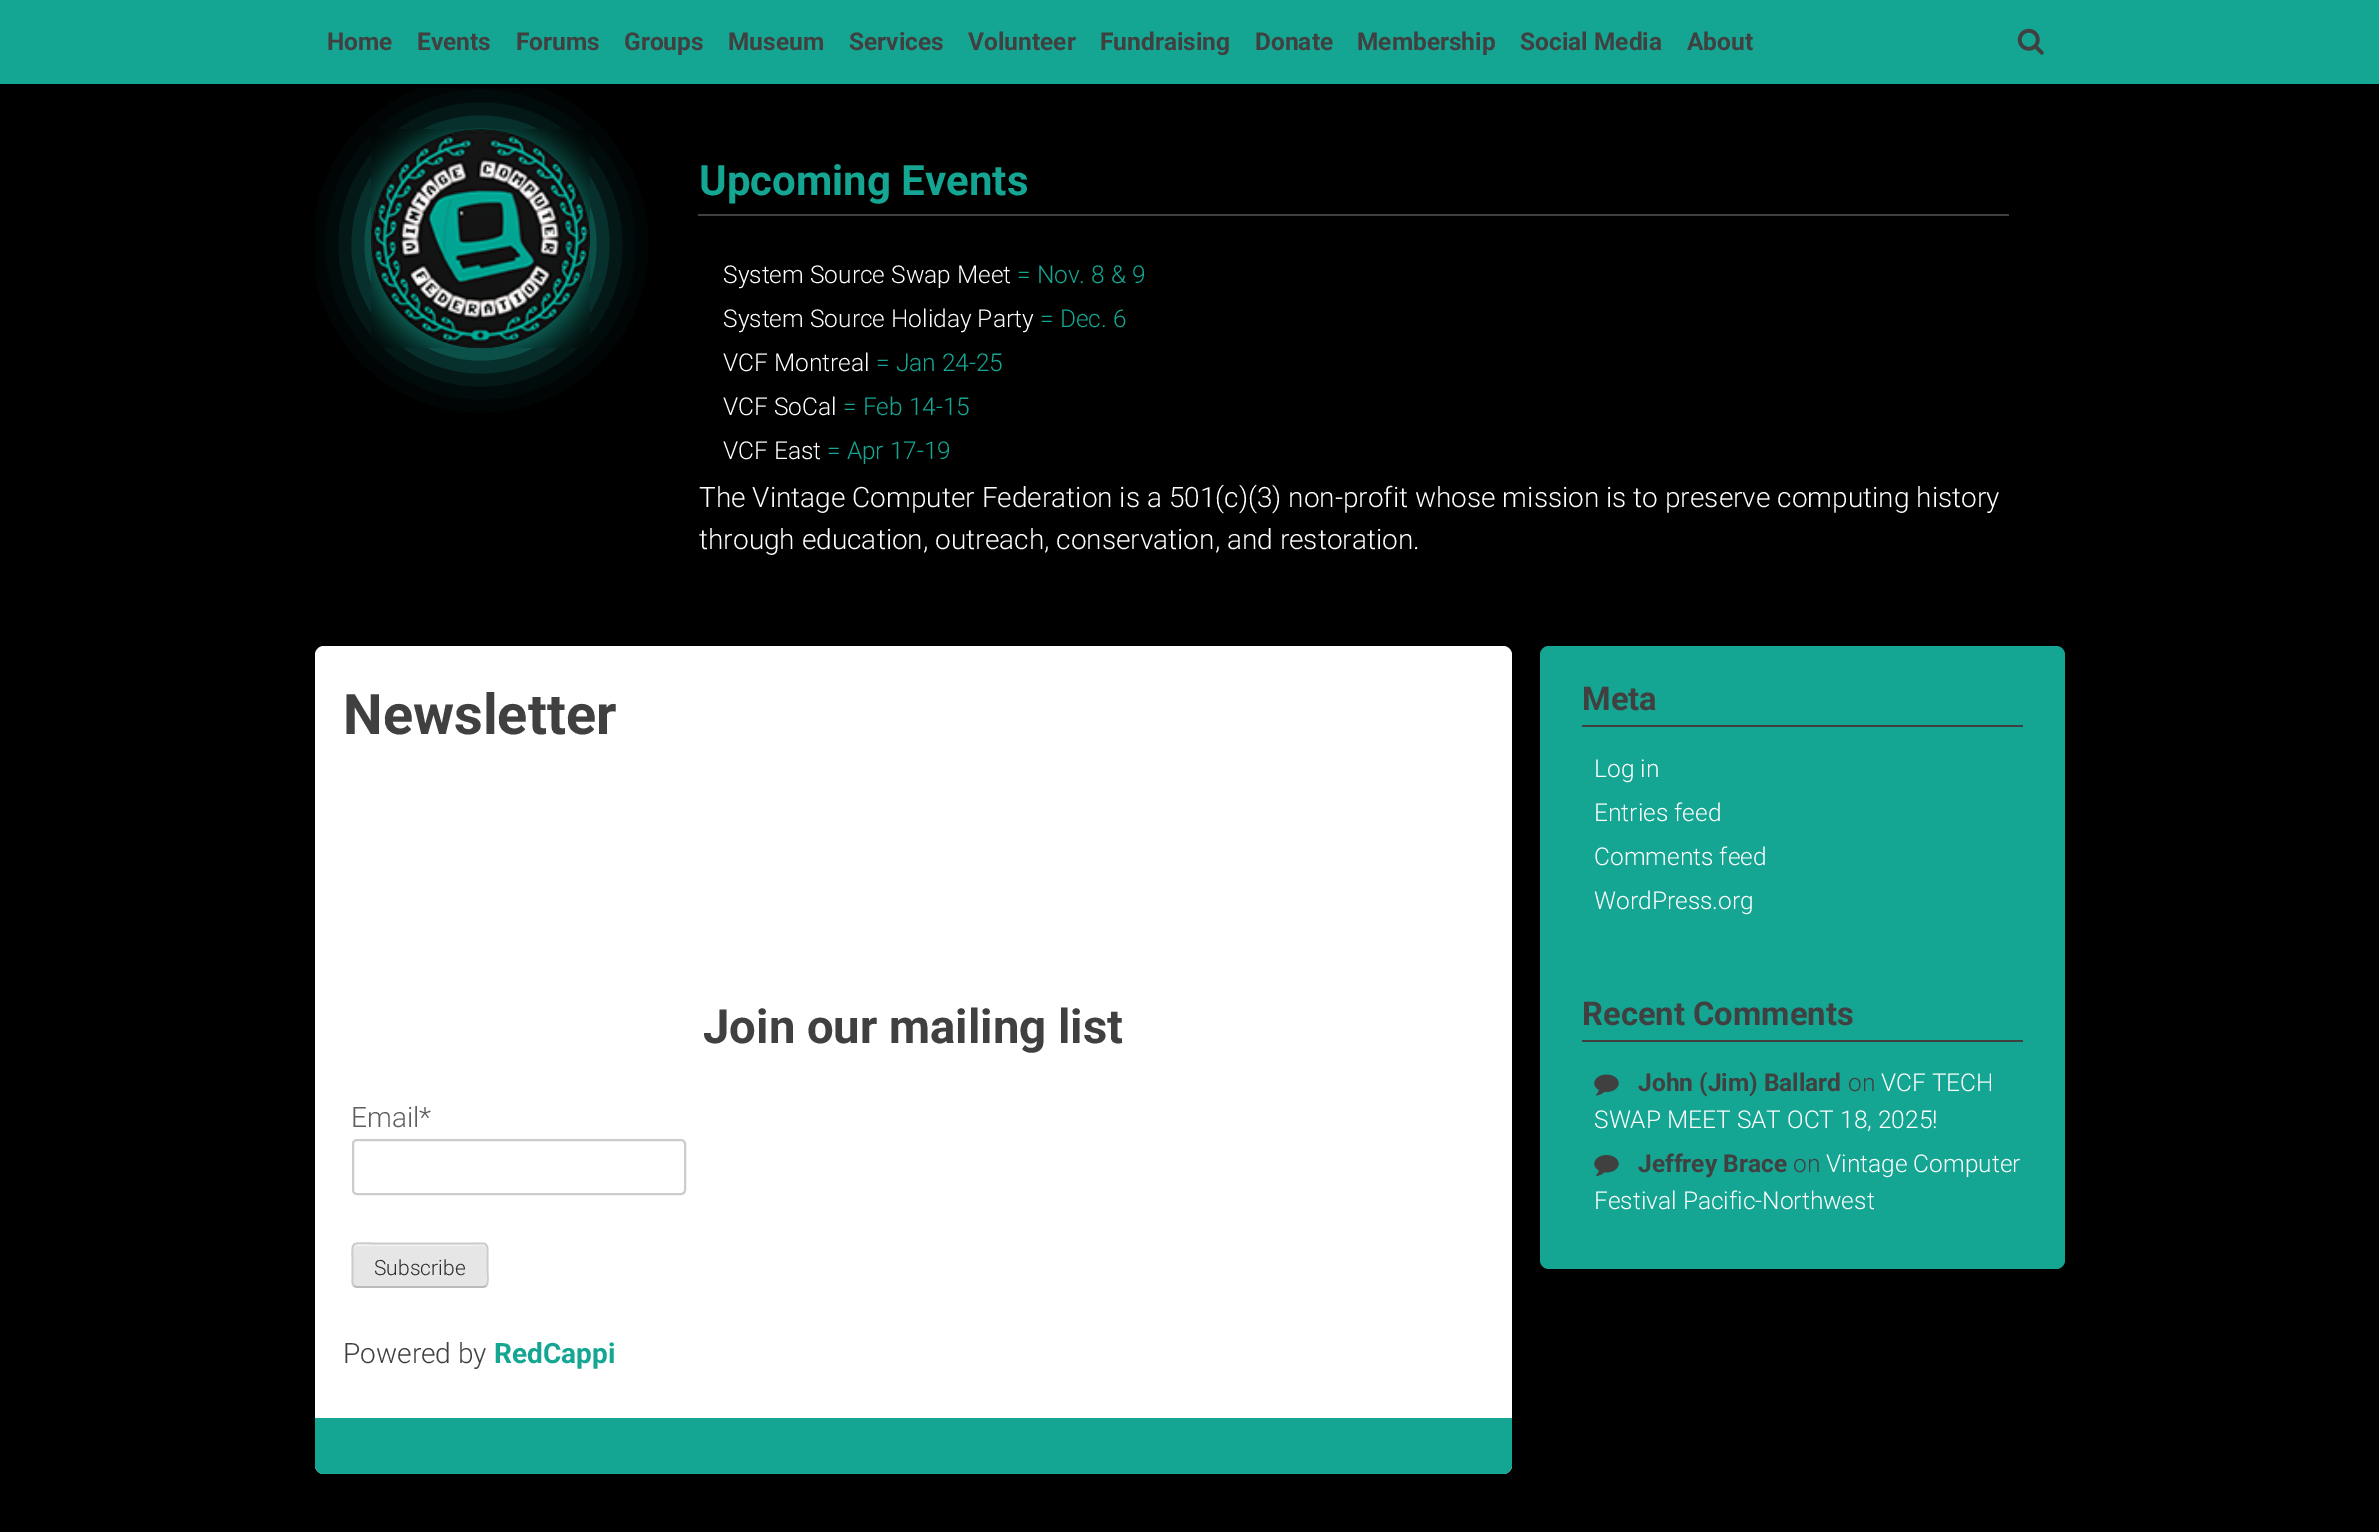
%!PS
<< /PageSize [2379 1532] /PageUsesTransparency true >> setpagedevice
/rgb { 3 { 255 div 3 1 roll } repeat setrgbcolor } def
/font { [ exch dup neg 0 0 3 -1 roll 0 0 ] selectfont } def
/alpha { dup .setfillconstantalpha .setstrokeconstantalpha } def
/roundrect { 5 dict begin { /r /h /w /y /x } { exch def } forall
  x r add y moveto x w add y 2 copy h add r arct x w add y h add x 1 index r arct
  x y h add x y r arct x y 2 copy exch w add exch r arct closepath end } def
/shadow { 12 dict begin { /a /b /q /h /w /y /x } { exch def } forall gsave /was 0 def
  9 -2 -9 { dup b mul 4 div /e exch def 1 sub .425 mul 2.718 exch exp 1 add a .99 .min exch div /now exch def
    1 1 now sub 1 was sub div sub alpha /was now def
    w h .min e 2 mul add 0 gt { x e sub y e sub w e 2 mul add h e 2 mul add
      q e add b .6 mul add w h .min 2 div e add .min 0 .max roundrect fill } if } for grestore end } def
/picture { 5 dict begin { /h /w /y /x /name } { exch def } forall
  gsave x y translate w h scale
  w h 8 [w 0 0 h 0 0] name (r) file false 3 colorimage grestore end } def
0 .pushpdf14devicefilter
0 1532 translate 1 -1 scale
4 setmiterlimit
0 0 0 rgb
0 0 2379 1532 rectfill
gsave
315 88 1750 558 rectclip
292 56 moveto 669 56 lineto 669 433 lineto 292 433 lineto closepath 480 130 moveto 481 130 lineto 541 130 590 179 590 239 curveto 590 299 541 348 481 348 curveto 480 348 lineto 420 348 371 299 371 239 curveto 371 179 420 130 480 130 curveto closepath eoclip newpath
21 165 147 rgb
371 135 219 219 109.5 26 1 shadow
grestore
21 165 147 rgb
0 0 2379 84 rectfill
(img/1.rgb) 2017 28 27 27 picture
(img/2.rgb) 371 129 219 219 picture
64 64 64 rgb
698 214 1311 2 rectfill
255 255 255 rgb
315 646 1197 828 9 roundrect fill
204 204 204 rgb
2 setlinewidth
353 1140 332 54 4 roundrect stroke
230 230 230 rgb
352 1243 136 45 5 roundrect fill
243 243 243 rgb
357 1246 moveto 462 1246 lineto 488 1246 486 1241 486 1261 curveto 486 1285 lineto 487 1284 487 1283 487 1282 curveto 487 1248 lineto 487 1246 485 1244 483 1244 curveto 358 1244 lineto 356 1244 354 1246 354 1248 curveto 354 1250 lineto 354 1248 355 1246 357 1246 curveto closepath fill
187 187 187 rgb
1.8 setlinewidth
486 1286 moveto 483 1287 lineto 356.5 1287 lineto 354 1286 lineto stroke
204 204 204 rgb
354 1286 moveto 351.5 1283.5 352.5 1279.5 352.5 1277 curveto 352.5 1265 lineto 352.5 1238.5 348.5 1243.5 378 1243.5 curveto 483 1243.5 lineto 488.5 1243.5 487.5 1250 487.5 1253.5 curveto 487.5 1271 lineto 487.5 1274 489 1283 486 1286 curveto stroke
21 165 147 rgb
315 1418 moveto 1512 1418 lineto 1512 1465 lineto 1512 1470 1508 1474 1503 1474 curveto 324 1474 lineto 319 1474 315 1470 315 1465 curveto closepath fill
1540 646 525 623 9 roundrect fill
64 64 64 rgb
1582 725 441 2 rectfill
1582 1040 441 2 rectfill
(img/3.rgb) 1594 1074 25 22 picture
(img/4.rgb) 1594 1155 25 21 picture
/Roboto-Bold 24.5 font
[
  [(Home) 327 50]
  [(Events) 417 50]
  [(Forums) 516 50]
  [(Groups) 624 50]
  [(Museum) 728 50]
  [(Services) 849 50]
  [(Volunteer) 968 50]
  [(Fundraising) 1100 50]
  [(Donate) 1255 50]
  [(Membership) 1357 50]
  [(Social Media) 1520 50]
  [(About) 1687 50]
] { aload pop moveto show } forall
/Roboto-Bold 42 font
21 165 147 rgb
699 195 moveto (Upcoming Events) show
/Roboto-Light 24.5 font
255 255 255 rgb
723 283 moveto (System Source Swap Meet) show
21 165 147 rgb
1017 283 moveto (= Nov. 8 & 9) show
255 255 255 rgb
723 327 moveto (System Source Holiday Party) show
21 165 147 rgb
1040 327 moveto (= Dec. 6) show
255 255 255 rgb
723 371 moveto (VCF Montreal) show
21 165 147 rgb
876 371 moveto (= Jan 24-25) show
255 255 255 rgb
723 415 moveto (VCF SoCal) show
21 165 147 rgb
843 415 moveto (= Feb 14-15) show
255 255 255 rgb
723 459 moveto (VCF East) show
21 165 147 rgb
827 459 moveto (= Apr 17-19) show
/Roboto-Light 28 font
255 255 255 rgb
699 507 moveto (The Vintage Computer Federation is a 501\(c\)\(3\) non-profit whose mission is to preserve computing history) show
699 549 moveto (through education, outreach, conservation, and restoration.) show
/Roboto-Bold 56 font
64 64 64 rgb
343 734 moveto (Newsletter) show
/Roboto-Bold 47.25 font
703 1043 moveto (Join our mailing list) show
/Roboto-Light 28 font
95 95 95 rgb
351 1127 moveto (Email*) show
/Roboto-Light 21 font
46 46 46 rgb
374 1275 moveto (Subscribe) show
/Roboto-Light 28 font
64 64 64 rgb
343 1363 moveto (Powered by) show
/Roboto-Bold 28 font
21 165 147 rgb
494 1363 moveto (RedCappi) show
/Roboto-Bold 32.75 font
64 64 64 rgb
1582 710 moveto (Meta) show
/Roboto-Light 24.5 font
255 255 255 rgb
[
  [(Log in) 1594 777]
  [(Entries feed) 1594 821]
  [(Comments feed) 1594 865]
  [(WordPress.org) 1594 909]
] { aload pop moveto show } forall
/Roboto-Bold 32.75 font
64 64 64 rgb
1582 1025 moveto (Recent Comments) show
/Roboto-Bold 24.5 font
1638 1091 moveto (John \(Jim\) Ballard) show
/Roboto-Light 24.5 font
1848 1091 moveto (on) show
255 255 255 rgb
1881 1091 moveto (VCF TECH) show
1594 1128 moveto (SWAP MEET SAT OCT 18, 2025!) show
/Roboto-Bold 24.5 font
64 64 64 rgb
1638 1172 moveto (Jeffrey Brace) show
/Roboto-Light 24.5 font
1793 1172 moveto (on) show
255 255 255 rgb
1826 1172 moveto (Vintage Computer) show
1594 1209 moveto (Festival Pacific-Northwest) show
.poppdf14devicefilter showpage
